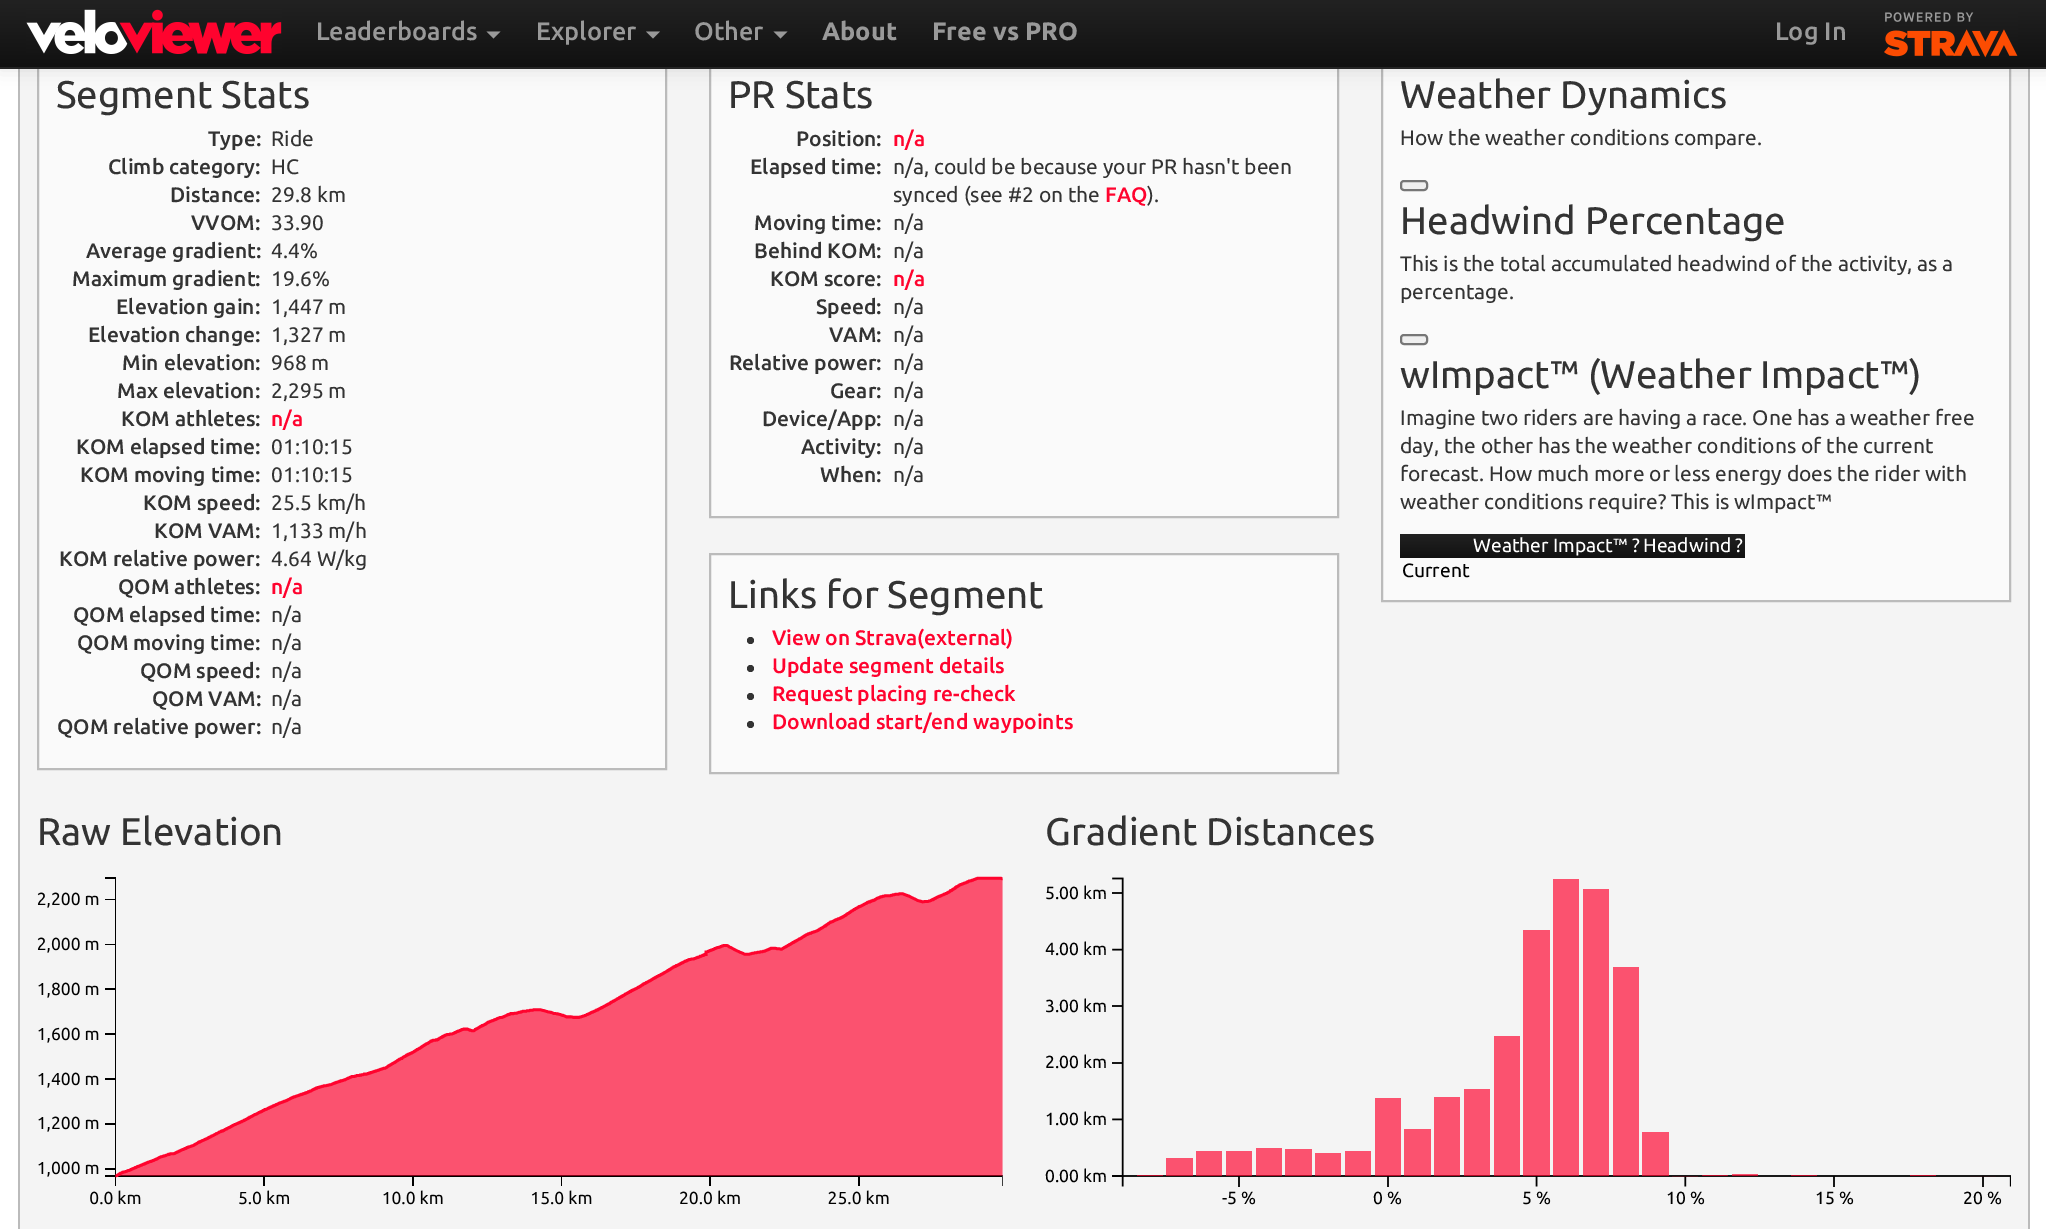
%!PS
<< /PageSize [2046 1229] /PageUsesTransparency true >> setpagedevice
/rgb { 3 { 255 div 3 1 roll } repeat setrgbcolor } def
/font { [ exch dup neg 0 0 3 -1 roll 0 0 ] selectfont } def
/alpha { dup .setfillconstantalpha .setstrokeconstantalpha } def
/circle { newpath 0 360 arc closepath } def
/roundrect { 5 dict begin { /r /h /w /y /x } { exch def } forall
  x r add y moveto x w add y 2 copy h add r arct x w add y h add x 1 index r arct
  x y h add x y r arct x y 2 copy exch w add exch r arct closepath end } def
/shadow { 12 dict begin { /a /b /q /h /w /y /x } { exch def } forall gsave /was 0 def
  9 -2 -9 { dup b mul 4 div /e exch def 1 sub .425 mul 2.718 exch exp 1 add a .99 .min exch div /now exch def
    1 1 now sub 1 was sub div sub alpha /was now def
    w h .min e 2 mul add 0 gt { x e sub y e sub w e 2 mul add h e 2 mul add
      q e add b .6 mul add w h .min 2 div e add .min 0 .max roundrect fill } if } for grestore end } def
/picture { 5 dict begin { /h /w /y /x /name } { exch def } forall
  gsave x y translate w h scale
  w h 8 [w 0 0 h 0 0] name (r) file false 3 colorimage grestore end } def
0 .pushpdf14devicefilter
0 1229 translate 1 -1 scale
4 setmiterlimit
255 255 255 rgb
0 0 2046 1229 rectfill
[
  [20 69 2008 1160 244 244 244]
  [2028 69 2 1160 187 187 187]
  [18 69 2 1160 187 187 187]
  [39 69 626 699 250 250 250]
] { aload pop rgb rectfill } forall
187 187 187 rgb
2 setlinewidth
38 54 628 715 rectstroke
250 250 250 rgb
711 69 626 447 rectfill
187 187 187 rgb
710 54 628 463 rectstroke
250 250 250 rgb
1383 69 626 531 rectfill
187 187 187 rgb
1382 54 628 547 rectstroke
0 0 0 rgb
0 2 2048 68 0 9 0.1 shadow
gsave 0 0 moveto 2046 0 lineto 2046 67 lineto 0 67 lineto closepath clip newpath
<< /ShadingType 2 /ColorSpace /DeviceRGB /Coords [1024 0 1024 67] /Extend [true true] /Function << /FunctionType 2 /Domain [0 1] /C0 [0.133 0.133 0.133] /C1 [0.067 0.067 0.067] /N 1 >> >> shfill grestore
37 37 37 rgb
0 67 2046 2 rectfill
(img/1.rgb) 26 9 256 45 picture
153 153 153 rgb
486.5 31.5 moveto 500.5 31.5 lineto 493.5 38.5 lineto closepath fill
646 31.5 moveto 660 31.5 lineto 653 38.5 lineto closepath fill
773.5 31.5 moveto 787.5 31.5 lineto 780.5 38.5 lineto closepath fill
(img/2.rgb) 1884 12 134 46 picture
250 250 250 rgb
710 554 moveto 1338 554 lineto 1338 773 lineto 710 773 lineto closepath gsave fill grestore
187 187 187 rgb
stroke
51 51 51 rgb
750.5 640.5 3.5 circle fill
750.5 668.5 3.5 circle fill
750.5 696.5 3.5 circle fill
750.5 724.5 3.5 circle fill
239 239 239 rgb
1401 181 26 9 3 roundrect gsave fill grestore
118 118 118 rgb
stroke
239 239 239 rgb
1401 335 26 9 3 roundrect gsave fill grestore
118 118 118 rgb
stroke
gsave 1400 534 moveto 1472 534 lineto 1472 558 lineto 1400 558 lineto closepath clip newpath
<< /ShadingType 2 /ColorSpace /DeviceRGB /Coords [1436 534 1436 558] /Extend [true true] /Function << /FunctionType 2 /Domain [0 1] /C0 [0.133 0.133 0.133] /C1 [0.067 0.067 0.067] /N 1 >> >> shfill grestore
gsave 1472 534 moveto 1642 534 lineto 1642 558 lineto 1472 558 lineto closepath clip newpath
<< /ShadingType 2 /ColorSpace /DeviceRGB /Coords [1557 534 1557 558] /Extend [true true] /Function << /FunctionType 2 /Domain [0 1] /C0 [0.133 0.133 0.133] /C1 [0.067 0.067 0.067] /N 1 >> >> shfill grestore
gsave 1642 534 moveto 1745 534 lineto 1745 558 lineto 1642 558 lineto closepath clip newpath
<< /ShadingType 2 /ColorSpace /DeviceRGB /Coords [1693 534 1693 558] /Extend [true true] /Function << /FunctionType 2 /Domain [0 1] /C0 [0.133 0.133 0.133] /C1 [0.067 0.067 0.067] /N 1 >> >> shfill grestore
(img/3.rgb) 37 876 966 329 picture
(img/4.rgb) 1112 877 899 310 picture
/Ubuntu-Medium 25.25 font
153 153 153 rgb
[
  [(Leaderboards) 316 40]
  [(Explorer) 536 40]
  [(Other) 694 40]
] { aload pop moveto show } forall
/Ubuntu-Bold 25.25 font
822 40 moveto (About) show
932 40 moveto (Free vs PRO) show
/Ubuntu-Medium 25.25 font
1775 40 moveto (Log In) show
/Ubuntu-Regular 38.5 font
51 51 51 rgb
56 108 moveto (Segment Stats) show
/Ubuntu-Medium 21 font
208 146 moveto (Type:) show
/Ubuntu-Regular 21 font
271 146 moveto (Ride) show
/Ubuntu-Medium 21 font
108 174 moveto (Climb category:) show
/Ubuntu-Regular 21 font
271 174 moveto (HC) show
/Ubuntu-Medium 21 font
170 202 moveto (Distance:) show
/Ubuntu-Regular 21 font
271 202 moveto (29.8 km) show
/Ubuntu-Medium 21 font
191 230 moveto (VVOM:) show
/Ubuntu-Regular 21 font
271 230 moveto (33.90) show
/Ubuntu-Medium 21 font
86 258 moveto (Average gradient:) show
/Ubuntu-Regular 21 font
271 258 moveto (4.4%) show
/Ubuntu-Medium 21 font
72 286 moveto (Maximum gradient:) show
/Ubuntu-Regular 21 font
271 286 moveto (19.6%) show
/Ubuntu-Medium 21 font
116 314 moveto (Elevation gain:) show
/Ubuntu-Regular 21 font
271 314 moveto (1,447 m) show
/Ubuntu-Medium 21 font
88 342 moveto (Elevation change:) show
/Ubuntu-Regular 21 font
271 342 moveto (1,327 m) show
/Ubuntu-Medium 21 font
122 370 moveto (Min elevation:) show
/Ubuntu-Regular 21 font
271 370 moveto (968 m) show
/Ubuntu-Medium 21 font
117 398 moveto (Max elevation:) show
/Ubuntu-Regular 21 font
271 398 moveto (2,295 m) show
/Ubuntu-Medium 21 font
121 426 moveto (KOM athletes:) show
255 3 46 rgb
271 426 moveto (n/a) show
51 51 51 rgb
76 454 moveto (KOM elapsed time:) show
/Ubuntu-Regular 21 font
271 454 moveto (01:10:15) show
/Ubuntu-Medium 21 font
80 482 moveto (KOM moving time:) show
/Ubuntu-Regular 21 font
271 482 moveto (01:10:15) show
/Ubuntu-Medium 21 font
143 510 moveto (KOM speed:) show
/Ubuntu-Regular 21 font
271 510 moveto (25.5 km/h) show
/Ubuntu-Medium 21 font
154 538 moveto (KOM VAM:) show
/Ubuntu-Regular 21 font
271 538 moveto (1,133 m/h) show
/Ubuntu-Medium 21 font
59 566 moveto (KOM relative power:) show
/Ubuntu-Regular 21 font
271 566 moveto (4.64 W/kg) show
/Ubuntu-Medium 21 font
118 594 moveto (QOM athletes:) show
255 3 46 rgb
271 594 moveto (n/a) show
51 51 51 rgb
73 622 moveto (QOM elapsed time:) show
/Ubuntu-Regular 21 font
271 622 moveto (n/a) show
/Ubuntu-Medium 21 font
77 650 moveto (QOM moving time:) show
/Ubuntu-Regular 21 font
271 650 moveto (n/a) show
/Ubuntu-Medium 21 font
140 678 moveto (QOM speed:) show
/Ubuntu-Regular 21 font
271 678 moveto (n/a) show
/Ubuntu-Medium 21 font
152 706 moveto (QOM VAM:) show
/Ubuntu-Regular 21 font
271 706 moveto (n/a) show
/Ubuntu-Medium 21 font
57 734 moveto (QOM relative power:) show
/Ubuntu-Regular 21 font
271 734 moveto (n/a) show
/Ubuntu-Regular 38.5 font
728 108 moveto (PR Stats) show
/Ubuntu-Medium 21 font
796 146 moveto (Position:) show
255 3 46 rgb
893 146 moveto (n/a) show
51 51 51 rgb
750 174 moveto (Elapsed time:) show
/Ubuntu-Regular 21 font
893 174 moveto (n/a, could be because your PR hasn't been) show
893 202 moveto (synced \(see #2 on the) show
/Ubuntu-Medium 21 font
255 3 46 rgb
1105 202 moveto (FAQ) show
/Ubuntu-Regular 21 font
51 51 51 rgb
1147 202 moveto (\).) show
/Ubuntu-Medium 21 font
754 230 moveto (Moving time:) show
/Ubuntu-Regular 21 font
893 230 moveto (n/a) show
/Ubuntu-Medium 21 font
754 258 moveto (Behind KOM:) show
/Ubuntu-Regular 21 font
893 258 moveto (n/a) show
/Ubuntu-Medium 21 font
770 286 moveto (KOM score:) show
255 3 46 rgb
893 286 moveto (n/a) show
51 51 51 rgb
816 314 moveto (Speed:) show
/Ubuntu-Regular 21 font
893 314 moveto (n/a) show
/Ubuntu-Medium 21 font
829 342 moveto (VAM:) show
/Ubuntu-Regular 21 font
893 342 moveto (n/a) show
/Ubuntu-Medium 21 font
729 370 moveto (Relative power:) show
/Ubuntu-Regular 21 font
893 370 moveto (n/a) show
/Ubuntu-Medium 21 font
830 398 moveto (Gear:) show
/Ubuntu-Regular 21 font
893 398 moveto (n/a) show
/Ubuntu-Medium 21 font
762 426 moveto (Device/App:) show
/Ubuntu-Regular 21 font
893 426 moveto (n/a) show
/Ubuntu-Medium 21 font
801 454 moveto (Activity:) show
/Ubuntu-Regular 21 font
893 454 moveto (n/a) show
/Ubuntu-Medium 21 font
820 482 moveto (When:) show
/Ubuntu-Regular 21 font
893 482 moveto (n/a) show
/Ubuntu-Regular 38.5 font
728 608 moveto (Links for Segment) show
/Ubuntu-Medium 21 font
255 3 46 rgb
[
  [(View on Strava\(external\)) 772 645]
  [(Update segment details) 772 673]
  [(Request placing re-check) 772 701]
  [(Download start/end waypoints) 772 729]
] { aload pop moveto show } forall
/Ubuntu-Regular 38.5 font
51 51 51 rgb
1400 108 moveto (Weather Dynamics) show
/Ubuntu-Regular 21 font
1400 145 moveto (How the weather conditions compare.) show
/Ubuntu-Regular 38.5 font
1400 234 moveto (Headwind Percentage) show
/Ubuntu-Regular 21 font
1400 271 moveto (This is the total accumulated headwind of the activity, as a) show
1400 299 moveto (percentage.) show
/Ubuntu-Regular 38.5 font
1400 388 moveto (wImpact™ \(Weather Impact™\)) show
/Ubuntu-Regular 21 font
[
  [(Imagine two riders are having a race. One has a weather free) 1400 425]
  [(day, the other has the weather conditions of the current) 1400 453]
  [(forecast. How much more or less energy does the rider with) 1400 481]
  [(weather conditions require? This is wImpact™) 1400 509]
] { aload pop moveto show } forall
/Ubuntu-Regular 19.25 font
255 255 255 rgb
1473 552 moveto (Weather Impact™ ?) show
1643 552 moveto (Headwind ?) show
0 0 0 rgb
1402 577 moveto (Current) show
/Ubuntu-Regular 38.5 font
51 51 51 rgb
37 845 moveto (Raw Elevation) show
1045 845 moveto (Gradient Distances) show
/Ubuntu-Regular 17.5 font
0 0 0 rgb
[
  [(5.00 km) 1045 899]
  [(4.00 km) 1045 955]
  [(3.00 km) 1045 1012]
  [(2.00 km) 1045 1068]
  [(1.00 km) 1045 1125]
  [(0.00 km) 1045 1182]
  [(-5 %) 1222 1204]
  [(0 %) 1373 1204]
  [(5 %) 1522 1204]
  [(10 %) 1666 1204]
  [(15 %) 1815 1204]
  [(20 %) 1963 1204]
] { aload pop moveto show } forall
.poppdf14devicefilter showpage
